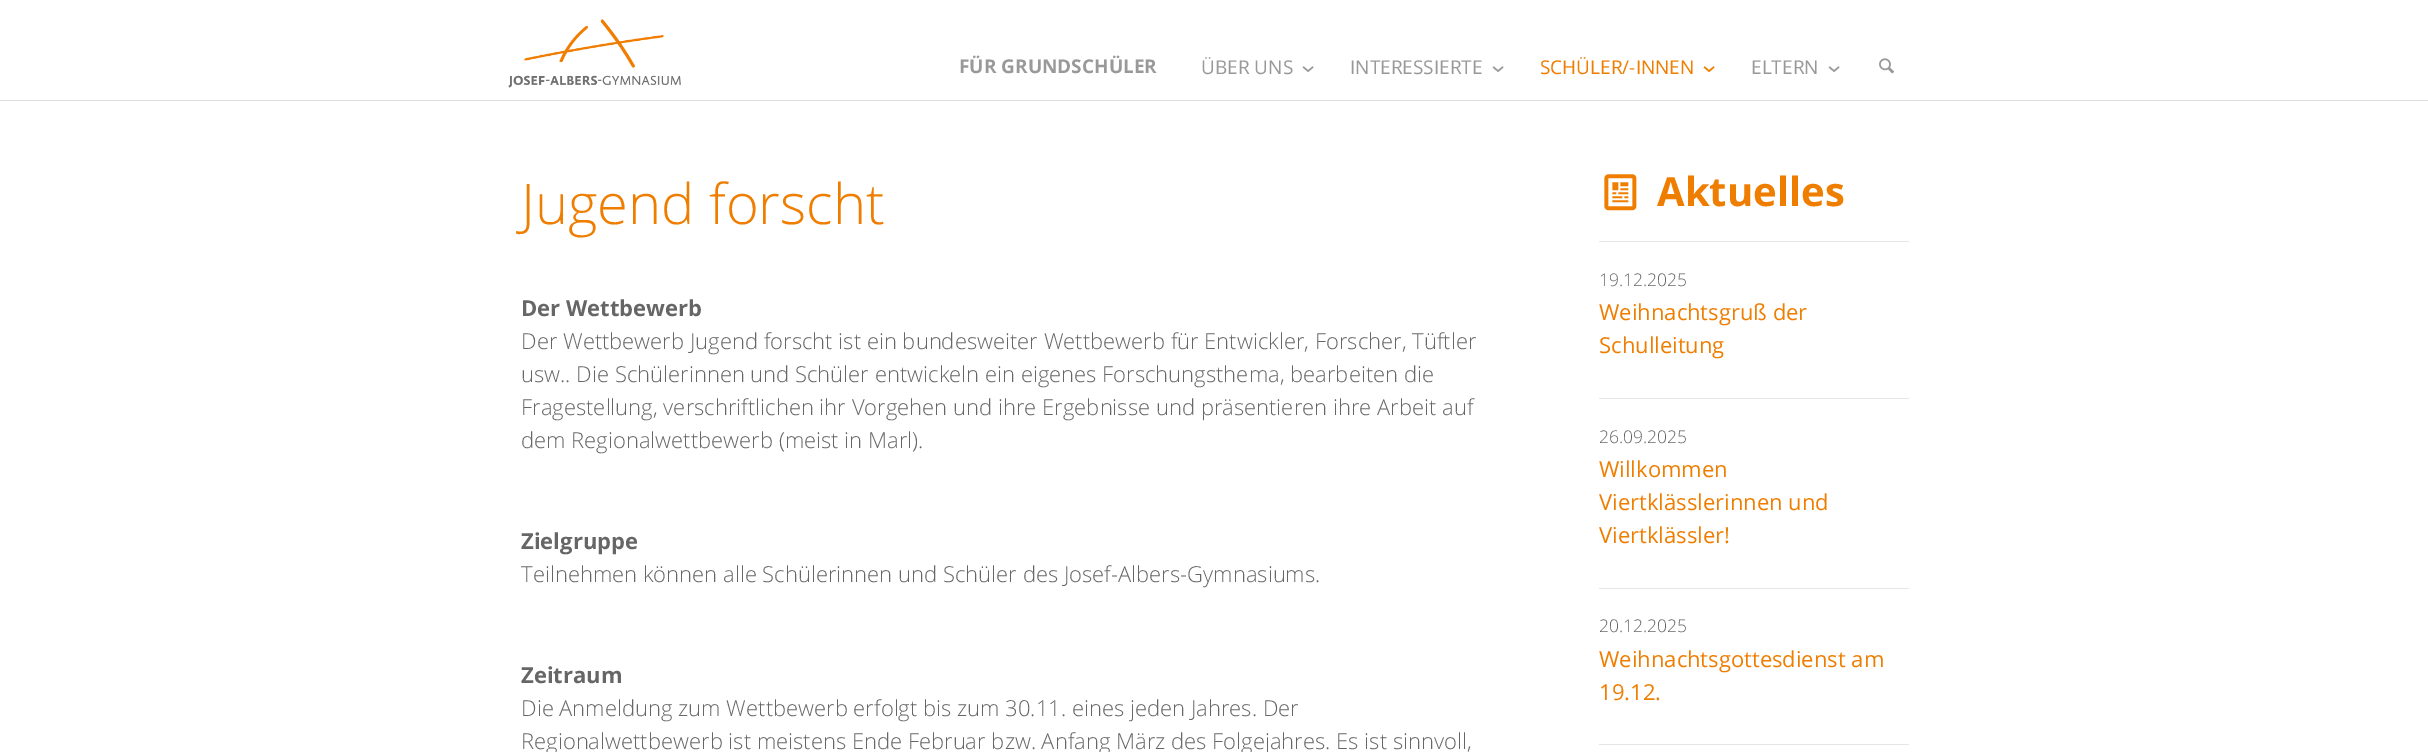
%!PS
<< /PageSize [2428 752] >> setpagedevice
/rgb { 3 { 255 div 3 1 roll } repeat setrgbcolor } def
/font { [ exch dup neg 0 0 3 -1 roll 0 0 ] selectfont } def
/picture { 5 dict begin { /h /w /y /x /name } { exch def } forall
  gsave x y translate w h scale
  w h 8 [w 0 0 h 0 0] name (r) file false 3 colorimage grestore end } def
0 752 translate 1 -1 scale
4 setmiterlimit
255 255 255 rgb
0 0 2428 752 rectfill
221 221 221 rgb
0 100 2428 1 rectfill
(img/1.rgb) 508 19 173 69 picture
(img/2.rgb) 1879 58 15 16 picture
(img/3.rgb) 1604 174 33 37 picture
[
  [1599 241 310 1 230 230 230]
  [1599 398 310 1 230 230 230]
  [1599 588 310 1 230 230 230]
  [1599 744 310 1 230 230 230]
] { aload pop rgb rectfill } forall
/OpenSans-Bold 19 font
153 153 153 rgb
959 73 moveto (FÜR GRUNDSCHÜLER) show
/OpenSans-Regular 19 font
1201 74 moveto (ÜBER UNS) show
/OpenSans-Regular 27 font
gsave 1301 65 translate 90 rotate 0 0 moveto (›) show grestore
/OpenSans-Regular 19 font
1350 74 moveto (INTERESSIERTE) show
/OpenSans-Regular 27 font
gsave 1491 65 translate 90 rotate 0 0 moveto (›) show grestore
/OpenSans-Regular 19 font
239 125 0 rgb
1540 74 moveto (SCHÜLER/-INNEN) show
/OpenSans-Regular 27 font
gsave 1702 65 translate 90 rotate 0 0 moveto (›) show grestore
/OpenSans-Regular 19 font
153 153 153 rgb
1751 74 moveto (ELTERN) show
/OpenSans-Regular 27 font
gsave 1827 65 translate 90 rotate 0 0 moveto (›) show grestore
/OpenSans-Light 56 font
239 125 0 rgb
521 224 moveto (Jugend forscht) show
/OpenSans-Bold 22 font
102 102 102 rgb
521 316 moveto (Der Wettbewerb) show
/OpenSans-Light 22 font
[
  [(Der Wettbewerb Jugend forscht ist ein bundesweiter Wettbewerb für Entwickler, Forscher, Tüftler) 521 349]
  [(usw.. Die Schülerinnen und Schüler entwickeln ein eigenes Forschungsthema, bearbeiten die) 521 382]
  [(Fragestellung, verschriftlichen ihr Vorgehen und ihre Ergebnisse und präsentieren ihre Arbeit auf) 521 415]
  [(dem Regionalwettbewerb \(meist in Marl\).) 521 448]
] { aload pop moveto show } forall
/OpenSans-Bold 22 font
521 549 moveto (Zielgruppe) show
/OpenSans-Light 22 font
521 582 moveto (Teilnehmen können alle Schülerinnen und Schüler des Josef-Albers-Gymnasiums.) show
/OpenSans-Bold 22 font
521 683 moveto (Zeitraum) show
/OpenSans-Light 22 font
521 716 moveto (Die Anmeldung zum Wettbewerb erfolgt bis zum 30.11. eines jeden Jahres. Der) show
521 749 moveto (Regionalwettbewerb ist meistens Ende Februar bzw. Anfang März des Folgejahres. Es ist sinnvoll,) show
/OpenSans-Bold 40 font
239 125 0 rgb
1657 206 moveto (Aktuelles) show
/OpenSans-Light 17.5 font
102 102 102 rgb
1599 286 moveto (19.12.2025) show
/OpenSans-Regular 22 font
239 125 0 rgb
1599 320 moveto (Weihnachtsgruß der) show
1599 353 moveto (Schulleitung) show
/OpenSans-Light 17.5 font
102 102 102 rgb
1599 443 moveto (26.09.2025) show
/OpenSans-Regular 22 font
239 125 0 rgb
[
  [(Willkommen) 1599 477]
  [(Viertklässlerinnen und) 1599 510]
  [(Viertklässler!) 1599 543]
] { aload pop moveto show } forall
/OpenSans-Light 17.5 font
102 102 102 rgb
1599 632 moveto (20.12.2025) show
/OpenSans-Regular 22 font
239 125 0 rgb
1599 667 moveto (Weihnachtsgottesdienst am) show
1599 700 moveto (19.12.) show
showpage
